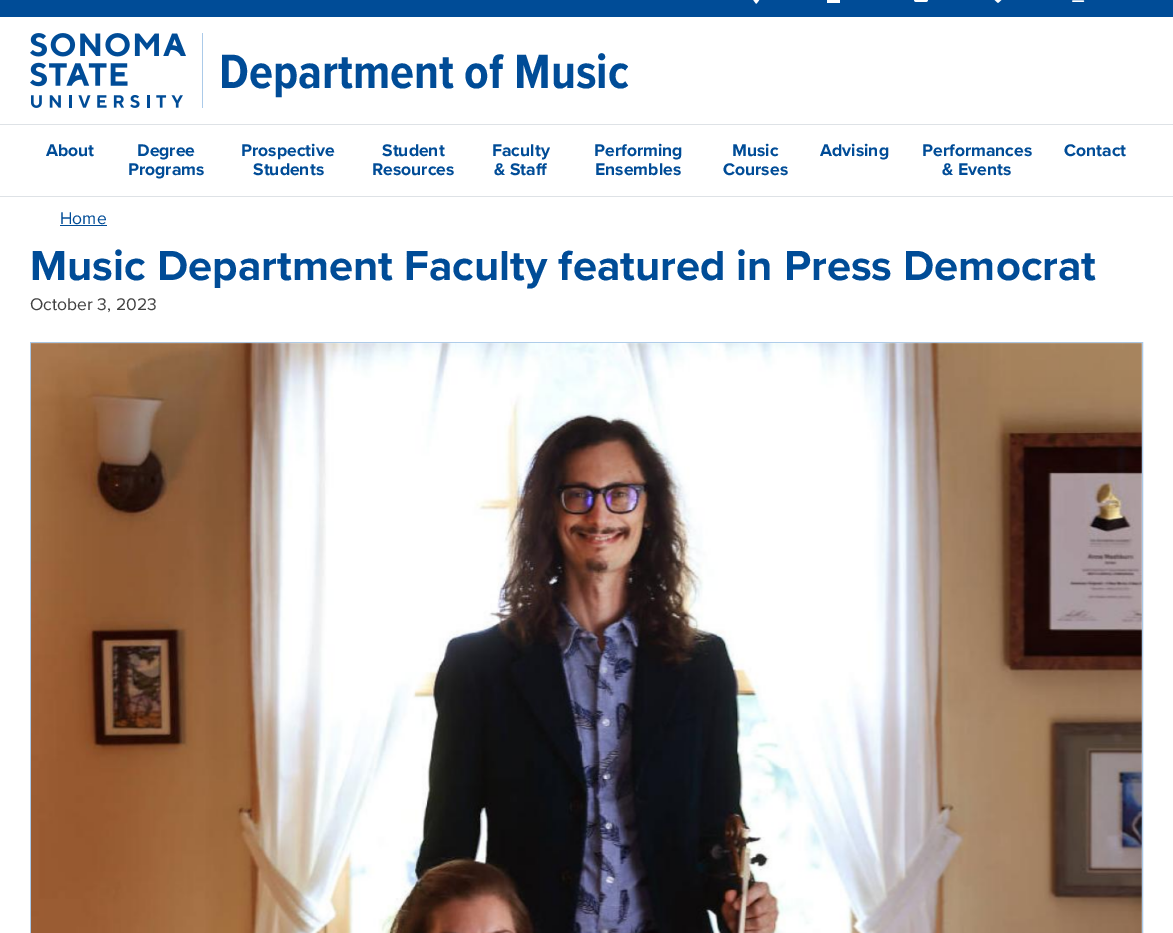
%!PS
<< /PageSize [1173 933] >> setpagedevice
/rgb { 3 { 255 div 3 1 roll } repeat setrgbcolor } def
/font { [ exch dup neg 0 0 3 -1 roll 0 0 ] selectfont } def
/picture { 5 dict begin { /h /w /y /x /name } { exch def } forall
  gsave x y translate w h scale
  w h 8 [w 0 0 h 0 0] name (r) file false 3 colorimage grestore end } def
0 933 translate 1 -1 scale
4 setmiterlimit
255 255 255 rgb
0 0 1173 933 rectfill
222 226 230 rgb
0 196 1173 1 rectfill
0 76 151 rgb
0 0 1173 17 rectfill
(img/1.rgb) 753 0 7 4 picture
255 255 255 rgb
827 0 13 3 rectfill
(img/2.rgb) 914 0 14 2 picture
(img/3.rgb) 994 0 8 3 picture
(img/4.rgb) 1072 0 13 2 picture
171 202 233 rgb
202 33 1 75 rectfill
(img/5.rgb) 30 33 156 75 picture
222 226 230 rgb
0 124 1173 1 rectfill
0 76 151 rgb
60 225 47 1 rectfill
171 202 233 rgb
30.5 342.5 1112 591 rectstroke
(img/6.rgb) 31 342 1111 591 picture
/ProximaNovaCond-Bold 50 font
0 76 151 rgb
219 88 moveto (Department of Music) show
/ProximaNova-Bold 17.5 font
[
  [(About) 46 156]
  [(Degree) 137 156]
  [(Programs) 128 175]
  [(Prospective) 241 156]
  [(Students) 253 175]
  [(Student) 382 156]
  [(Resources) 372 175]
  [(Faculty) 492 156]
  [(& Staff) 494 175]
  [(Performing) 594 156]
  [(Ensembles) 595 175]
  [(Music) 732 156]
  [(Courses) 723 175]
  [(Advising) 820 156]
  [(Performances) 922 156]
  [(& Events) 942 175]
  [(Contact) 1064 156]
] { aload pop moveto show } forall
/ProximaNova-Regular 17.5 font
60 224 moveto (Home) show
/ProximaNova-Bold 43.5 font
30 280 moveto (Music Department Faculty featured in Press Democrat) show
/ProximaNova-Regular 17.5 font
65 65 65 rgb
30 310 moveto (October 3, 2023) show
showpage
